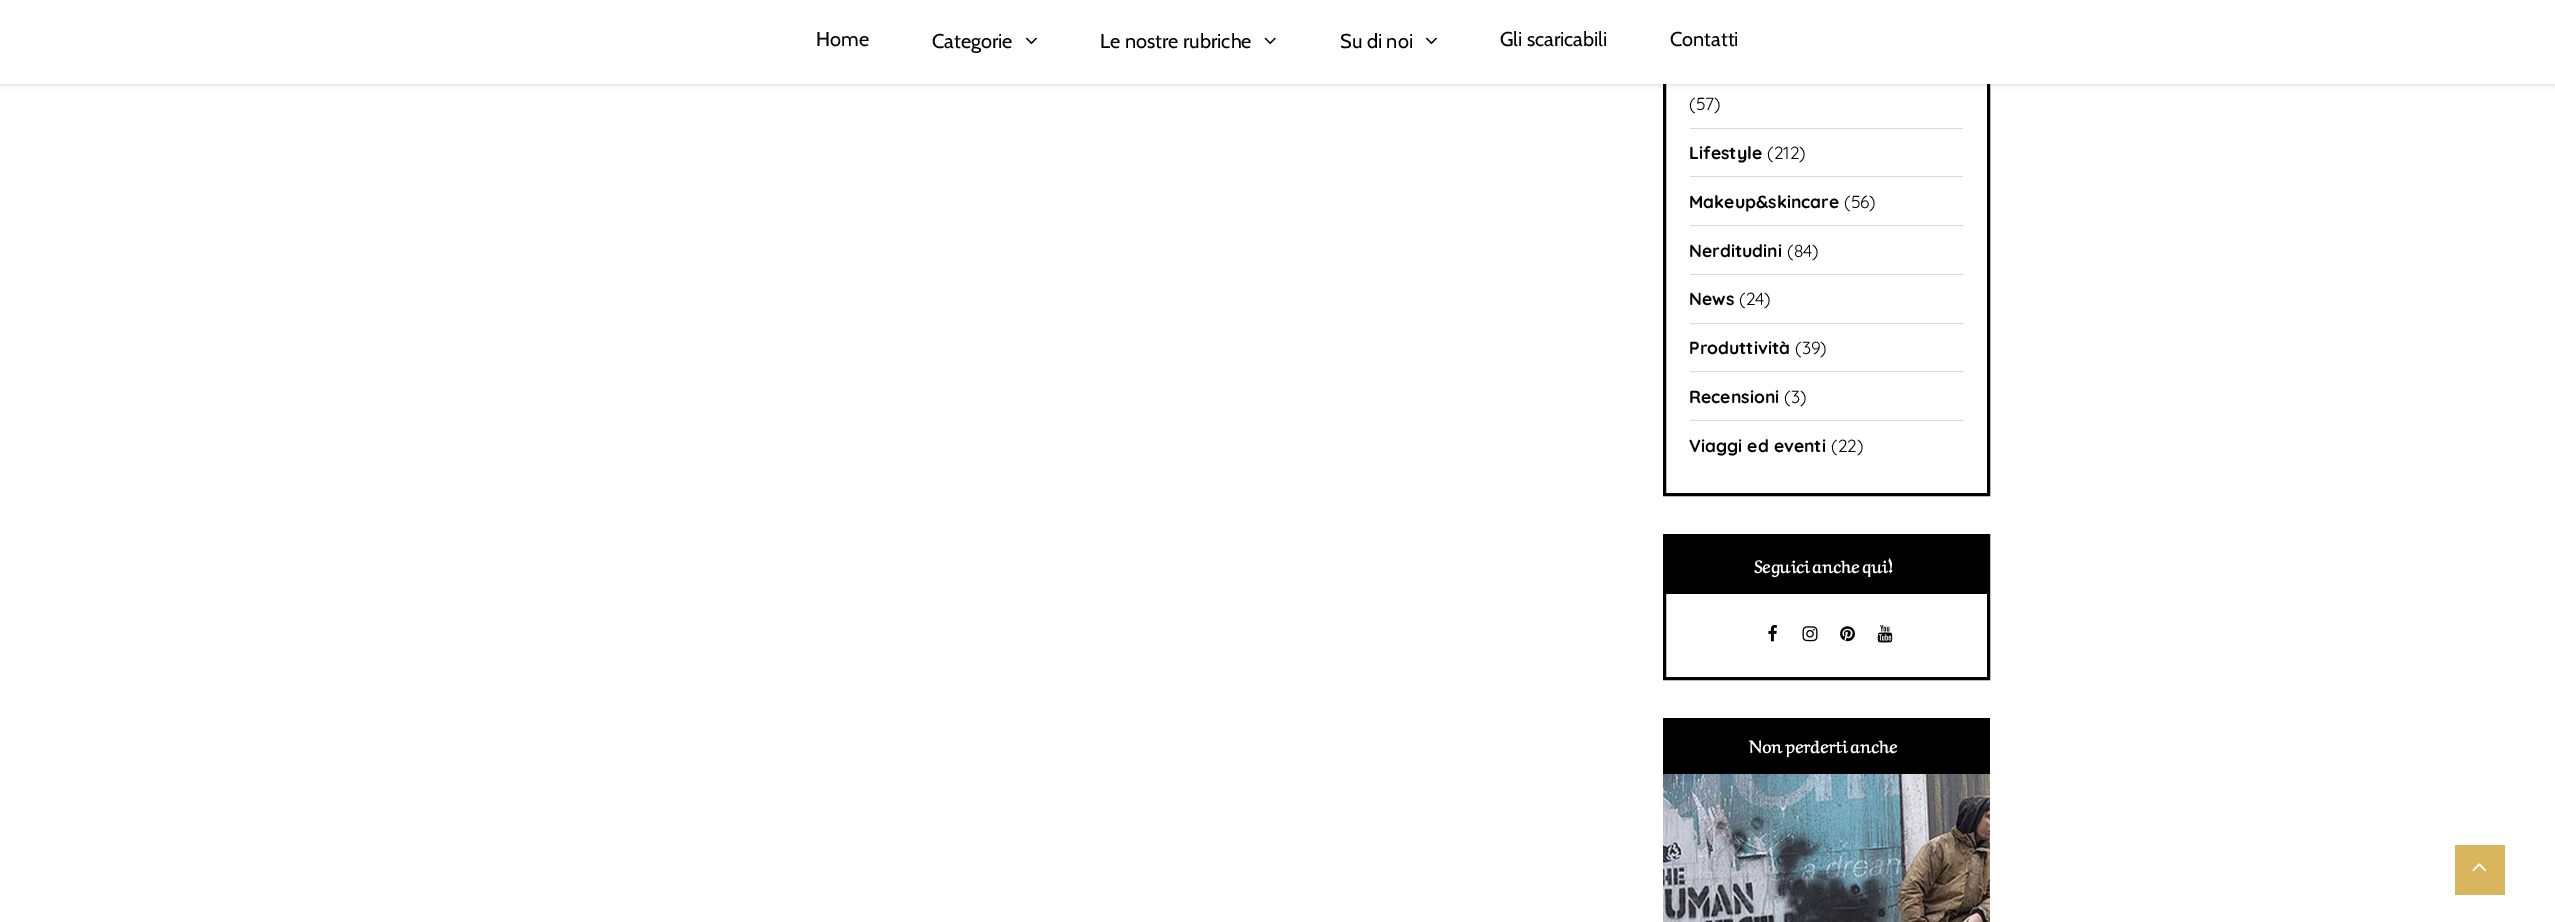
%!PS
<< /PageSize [2555 922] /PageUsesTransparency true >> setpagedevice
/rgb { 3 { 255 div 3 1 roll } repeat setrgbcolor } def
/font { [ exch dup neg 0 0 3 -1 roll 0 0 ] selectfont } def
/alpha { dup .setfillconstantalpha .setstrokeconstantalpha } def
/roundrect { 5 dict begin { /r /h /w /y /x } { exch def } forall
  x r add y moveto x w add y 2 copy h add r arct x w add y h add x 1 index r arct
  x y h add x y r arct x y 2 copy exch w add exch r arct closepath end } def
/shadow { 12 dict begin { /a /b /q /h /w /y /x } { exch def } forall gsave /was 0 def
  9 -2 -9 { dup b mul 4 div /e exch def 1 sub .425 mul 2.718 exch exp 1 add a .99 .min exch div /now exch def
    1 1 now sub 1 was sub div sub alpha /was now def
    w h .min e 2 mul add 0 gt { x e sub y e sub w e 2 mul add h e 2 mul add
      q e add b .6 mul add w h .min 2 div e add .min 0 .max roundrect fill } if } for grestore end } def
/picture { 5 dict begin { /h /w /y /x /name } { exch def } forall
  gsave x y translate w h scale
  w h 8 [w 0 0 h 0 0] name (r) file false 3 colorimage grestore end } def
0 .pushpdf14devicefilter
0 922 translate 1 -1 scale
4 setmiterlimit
255 255 255 rgb
0 0 2555 922 rectfill
0 0 0 rgb
3 setlinewidth
1664.5 -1.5 324 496 rectstroke
0 0 2555 84 0 3 0.2 shadow
255 255 255 rgb
0 0 2555 84 rectfill
(img/1.rgb) 1025 37 12 8 picture
(img/2.rgb) 1264 37 12 8 picture
(img/1.rgb) 1425 37 12 8 picture
[
  [1690 128 273 1 217 217 217]
  [1690 176 273 1 217 217 217]
  [1690 225 273 1 217 217 217]
  [1690 274 273 1 217 217 217]
  [1690 323 273 1 217 217 217]
  [1690 371 273 1 217 217 217]
  [1690 420 273 1 217 217 217]
] { aload pop rgb rectfill } forall
0 0 0 rgb
1664.5 535.5 324 143 rectstroke
1666 537 321 57 rectfill
(img/3.rgb) 1768 625 9 17 picture
(img/4.rgb) 1802 626 16 16 picture
(img/5.rgb) 1840 626 15 16 picture
(img/6.rgb) 1877 625 16 18 picture
1663 718 327 56 rectfill
(img/7.rgb) 1663 774 327 148 picture
217 182 94 rgb
2455 845 50 50 rectfill
(img/8.rgb) 2472 863 15 9 picture
/Cabin-Regular 20 font
0 0 0 rgb
[
  [(Home) 816 46]
  [(Categorie) 932 48]
  [(Le nostre rubriche) 1100 48]
  [(Su di noi) 1340 48]
  [(Gli scaricabili) 1500 46]
  [(Contatti) 1670 46]
] { aload pop moveto show } forall
/Quicksand-Light 17.5 font
1689 110 moveto (\(57\)) show
/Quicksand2-Light 17.5 font
1689 159 moveto (Lifestyle) show
/Quicksand-Light 17.5 font
1767 159 moveto (\(212\)) show
/Quicksand2-Light 17.5 font
1689 208 moveto (Makeup&skincare) show
/Quicksand-Light 17.5 font
1844 208 moveto (\(56\)) show
/Quicksand2-Light 17.5 font
1689 257 moveto (Nerditudini) show
/Quicksand-Light 17.5 font
1787 257 moveto (\(84\)) show
/Quicksand2-Light 17.5 font
1689 305 moveto (News) show
/Quicksand-Light 17.5 font
1739 305 moveto (\(24\)) show
/Quicksand2-Light 17.5 font
1689 354 moveto (Produttività) show
/Quicksand-Light 17.5 font
1795 354 moveto (\(39\)) show
/Quicksand2-Light 17.5 font
1689 403 moveto (Recensioni) show
/Quicksand-Light 17.5 font
1784 403 moveto (\(3\)) show
/Quicksand2-Light 17.5 font
1689 452 moveto (Viaggi ed eventi) show
/Quicksand-Light 17.5 font
1831 452 moveto (\(22\)) show
/ArefRuqaa-Bold 17.5 font
255 255 255 rgb
1754 573 moveto (Seguici anche qui!) show
1749 753 moveto (Non perderti anche) show
.poppdf14devicefilter showpage
